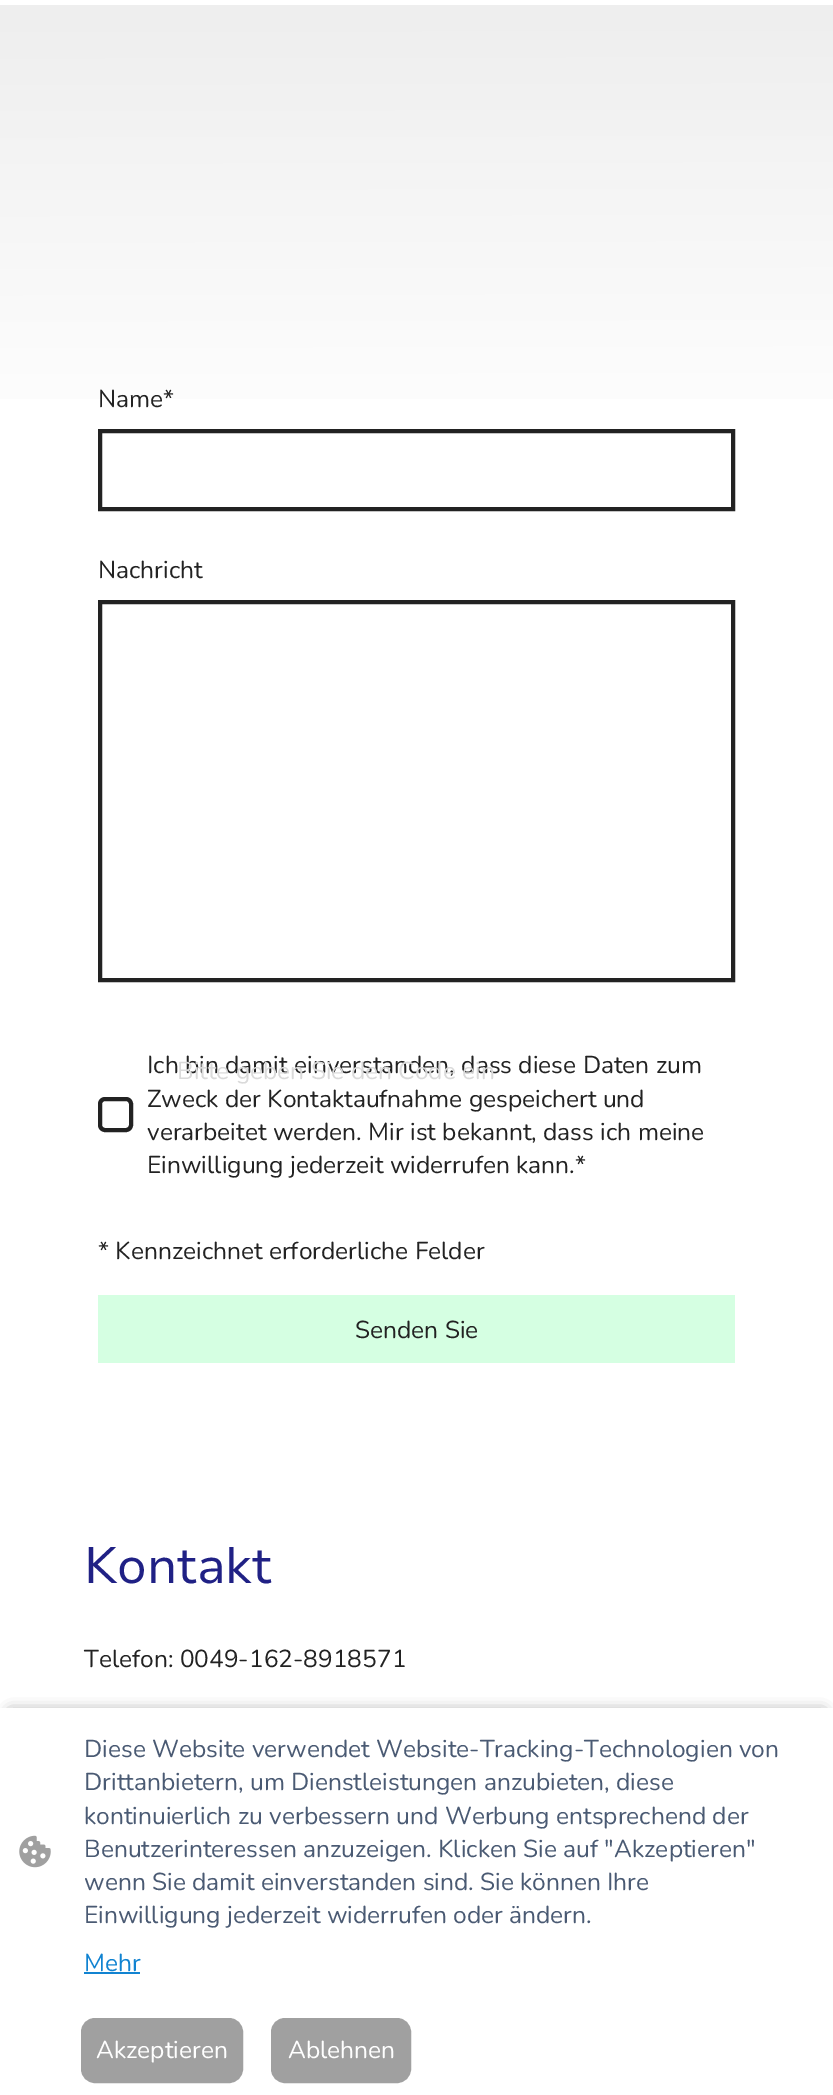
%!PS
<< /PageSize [833 2095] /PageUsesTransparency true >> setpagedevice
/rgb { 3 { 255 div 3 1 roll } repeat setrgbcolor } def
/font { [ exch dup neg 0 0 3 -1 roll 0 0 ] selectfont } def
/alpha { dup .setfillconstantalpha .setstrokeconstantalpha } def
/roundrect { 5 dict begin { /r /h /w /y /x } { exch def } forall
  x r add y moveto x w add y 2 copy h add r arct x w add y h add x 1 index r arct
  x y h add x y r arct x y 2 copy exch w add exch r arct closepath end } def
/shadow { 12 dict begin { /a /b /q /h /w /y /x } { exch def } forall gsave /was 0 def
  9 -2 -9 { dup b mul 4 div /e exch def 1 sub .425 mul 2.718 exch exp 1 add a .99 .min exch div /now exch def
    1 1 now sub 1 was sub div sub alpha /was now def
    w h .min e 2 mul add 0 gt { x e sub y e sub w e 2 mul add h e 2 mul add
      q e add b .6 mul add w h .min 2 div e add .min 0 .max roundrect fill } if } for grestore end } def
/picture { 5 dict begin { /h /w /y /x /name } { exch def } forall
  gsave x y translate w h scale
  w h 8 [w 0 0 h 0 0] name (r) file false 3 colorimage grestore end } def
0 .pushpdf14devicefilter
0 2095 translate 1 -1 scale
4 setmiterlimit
255 255 255 rgb
0 0 833 2095 rectfill
gsave 0 5 moveto 833 5 lineto 833 399 lineto 0 399 lineto closepath clip newpath
<< /ShadingType 2 /ColorSpace /DeviceRGB /Coords [416 5.2 417 466] /Extend [true true] /Function << /FunctionType 2 /Domain [0 1] /C0 [0.933 0.933 0.933] /C1 [1 1 1] /N 1 >> >> shfill grestore
34 34 34 rgb
4 setlinewidth
100 431 633 78 rectstroke
100 602 633 378 rectstroke
100 1099 31 31 5 roundrect stroke
213 255 226 rgb
98 1295 637 68 rectfill
0 0 0 rgb
11 1713 812 368 0 7 0.63 shadow
255 255 255 rgb
0 1708 833 387 rectfill
(img/1.rgb) 19 1835 32 33 picture
17 131 209 rgb
84 1972 56 2 rectfill
160 160 160 rgb
82 2019 160 63 13 roundrect gsave fill grestore
2 setlinewidth
stroke
272 2019 138 63 13 roundrect gsave fill grestore
stroke
/Nunito-Regular 24.5 font
34 34 34 rgb
[
  [(Name*) 98 407]
  [(Nachricht) 98 578]
  [(Ich bin damit einverstanden, dass diese Daten zum) 147 1073]
  [(Zweck der Kontaktaufnahme gespeichert und) 147 1107]
  [(verarbeitet werden. Mir ist bekannt, dass ich meine) 147 1140]
  [(Einwilligung jederzeit widerrufen kann.*) 147 1173]
  [(* Kennzeichnet erforderliche Felder) 98 1259]
  [(Senden Sie) 355 1338]
] { aload pop moveto show } forall
/NunitoSans-Regular 51 font
32 33 133 rgb
84 1583 moveto (Kontakt) show
/Nunito-Regular 24.5 font
34 34 34 rgb
84 1667 moveto (Telefon: 0049-162-8918571) show
218 218 218 rgb
177 1079 moveto (Bitte geben Sie den Code ein) show
74 90 115 rgb
[
  [(Diese Website verwendet Website-Tracking-Technologien von) 84 1757]
  [(Drittanbietern, um Dienstleistungen anzubieten, diese) 84 1790]
  [(kontinuierlich zu verbessern und Werbung entsprechend der) 84 1824]
  [(Benutzerinteressen anzuzeigen. Klicken Sie auf "Akzeptieren") 84 1857]
  [(wenn Sie damit einverstanden sind. Sie können Ihre) 84 1890]
  [(Einwilligung jederzeit widerrufen oder ändern.) 84 1923]
] { aload pop moveto show } forall
17 131 209 rgb
84 1971 moveto (Mehr) show
255 255 255 rgb
96 2058 moveto (Akzeptieren) show
288 2058 moveto (Ablehnen) show
.poppdf14devicefilter showpage
